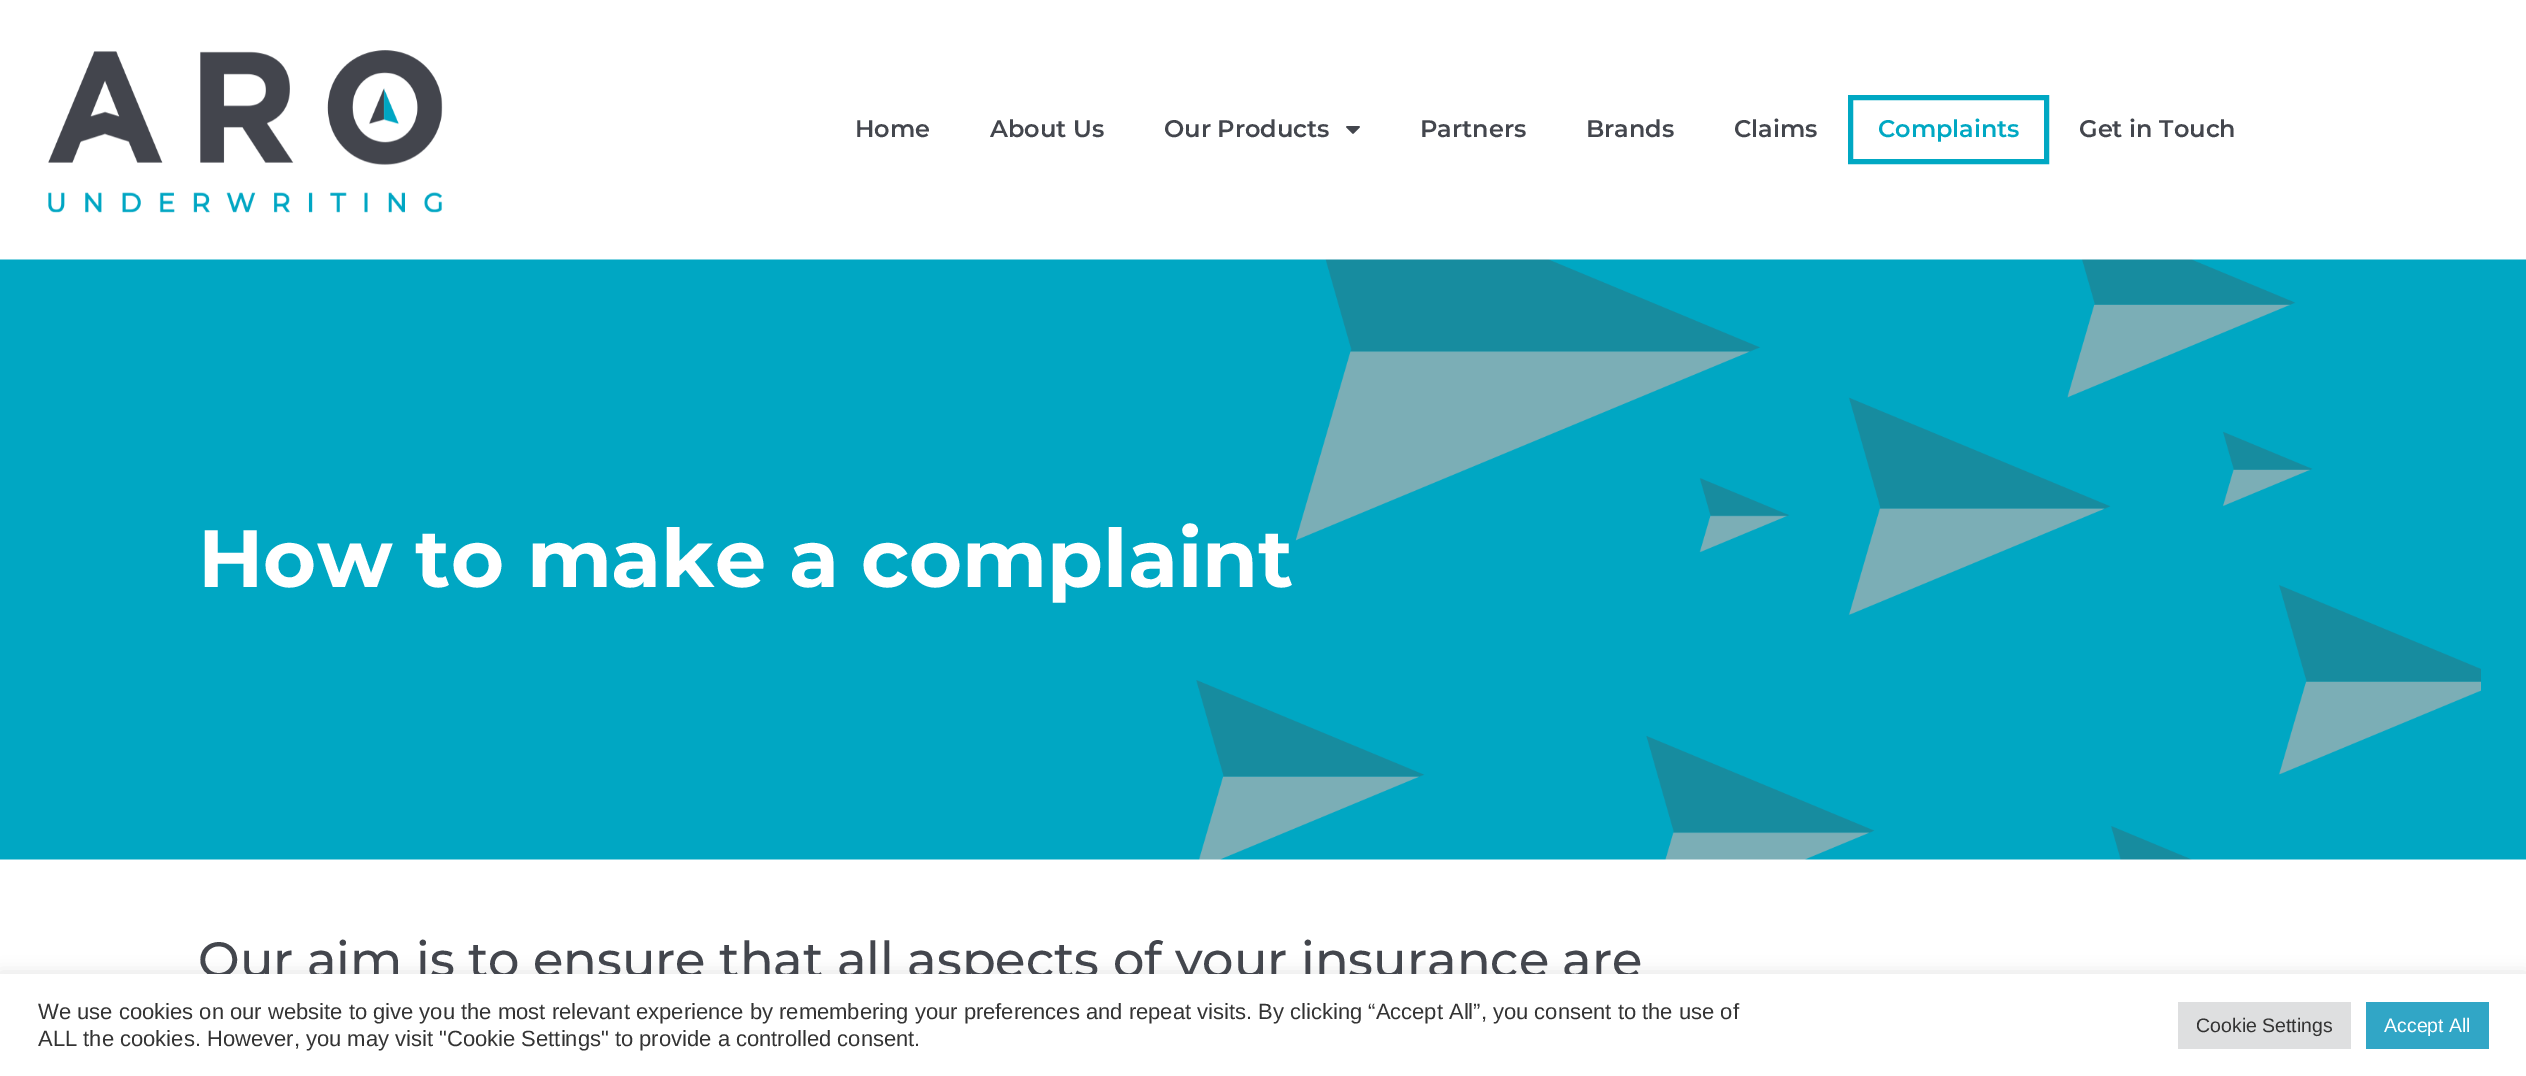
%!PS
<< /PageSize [2526 1076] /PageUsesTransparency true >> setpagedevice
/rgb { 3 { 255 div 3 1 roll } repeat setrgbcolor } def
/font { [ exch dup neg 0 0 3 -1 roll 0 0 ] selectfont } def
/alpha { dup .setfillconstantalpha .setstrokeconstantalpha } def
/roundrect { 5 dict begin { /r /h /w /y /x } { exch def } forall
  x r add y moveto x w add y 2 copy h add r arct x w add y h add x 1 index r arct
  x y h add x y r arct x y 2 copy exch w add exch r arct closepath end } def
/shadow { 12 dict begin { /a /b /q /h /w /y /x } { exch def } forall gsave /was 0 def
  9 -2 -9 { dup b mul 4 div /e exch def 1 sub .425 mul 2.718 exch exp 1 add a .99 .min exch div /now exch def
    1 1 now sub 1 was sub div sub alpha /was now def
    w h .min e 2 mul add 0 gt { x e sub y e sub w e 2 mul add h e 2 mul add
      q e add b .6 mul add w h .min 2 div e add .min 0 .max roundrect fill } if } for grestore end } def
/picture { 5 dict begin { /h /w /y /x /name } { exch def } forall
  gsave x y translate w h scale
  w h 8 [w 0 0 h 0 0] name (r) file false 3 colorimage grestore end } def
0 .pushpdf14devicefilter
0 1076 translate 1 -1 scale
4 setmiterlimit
255 255 255 rgb
0 0 2526 1076 rectfill
(img/1.rgb) 48 50 395 163 picture
(img/2.rgb) 1346 126 14 8 picture
0 168 195 rgb
5 setlinewidth
1850.5 97.5 196 64 rectstroke
(img/3.rgb) 0 259 2526 601 picture
172 171 171 rgb
0 972 2526 104 0 7.5 0.3 shadow
/Montserrat-SemiBold 24 font
67 70 77 rgb
[
  [(Home) 855 137]
  [(About Us) 990 137]
  [(Our Products) 1164 137]
  [(Partners) 1420 137]
  [(Brands) 1586 137]
  [(Claims) 1734 137]
] { aload pop moveto show } forall
0 168 195 rgb
1878 137 moveto (Complaints) show
67 70 77 rgb
2079 137 moveto (Get in Touch) show
/Montserrat-Bold 81 font
255 255 255 rgb
198 587 moveto (How to make a complaint) show
/Montserrat-Medium 49.5 font
67 70 77 rgb
198 977 moveto (Our aim is to ensure that all aspects of your insurance are) show
255 255 255 rgb
0 974 2526 102 rectfill
/LiberationSans-Regular 22 font
51 51 51 rgb
38 1019 moveto (We use cookies on our website to give you the most relevant experience by remembering your preferences and repeat visits. By clicking “Accept All”, you consent to the use of) show
38 1046 moveto (ALL the cookies. However, you may visit "Cookie Settings" to provide a controlled consent.) show
222 223 224 rgb
2178 1002 173 47 rectfill
/LiberationSans-Regular 19.5 font
51 51 51 rgb
2196 1032 moveto (Cookie Settings) show
49 166 198 rgb
2366 1002 123 47 rectfill
255 255 255 rgb
2384 1032 moveto (Accept All) show
.poppdf14devicefilter showpage
